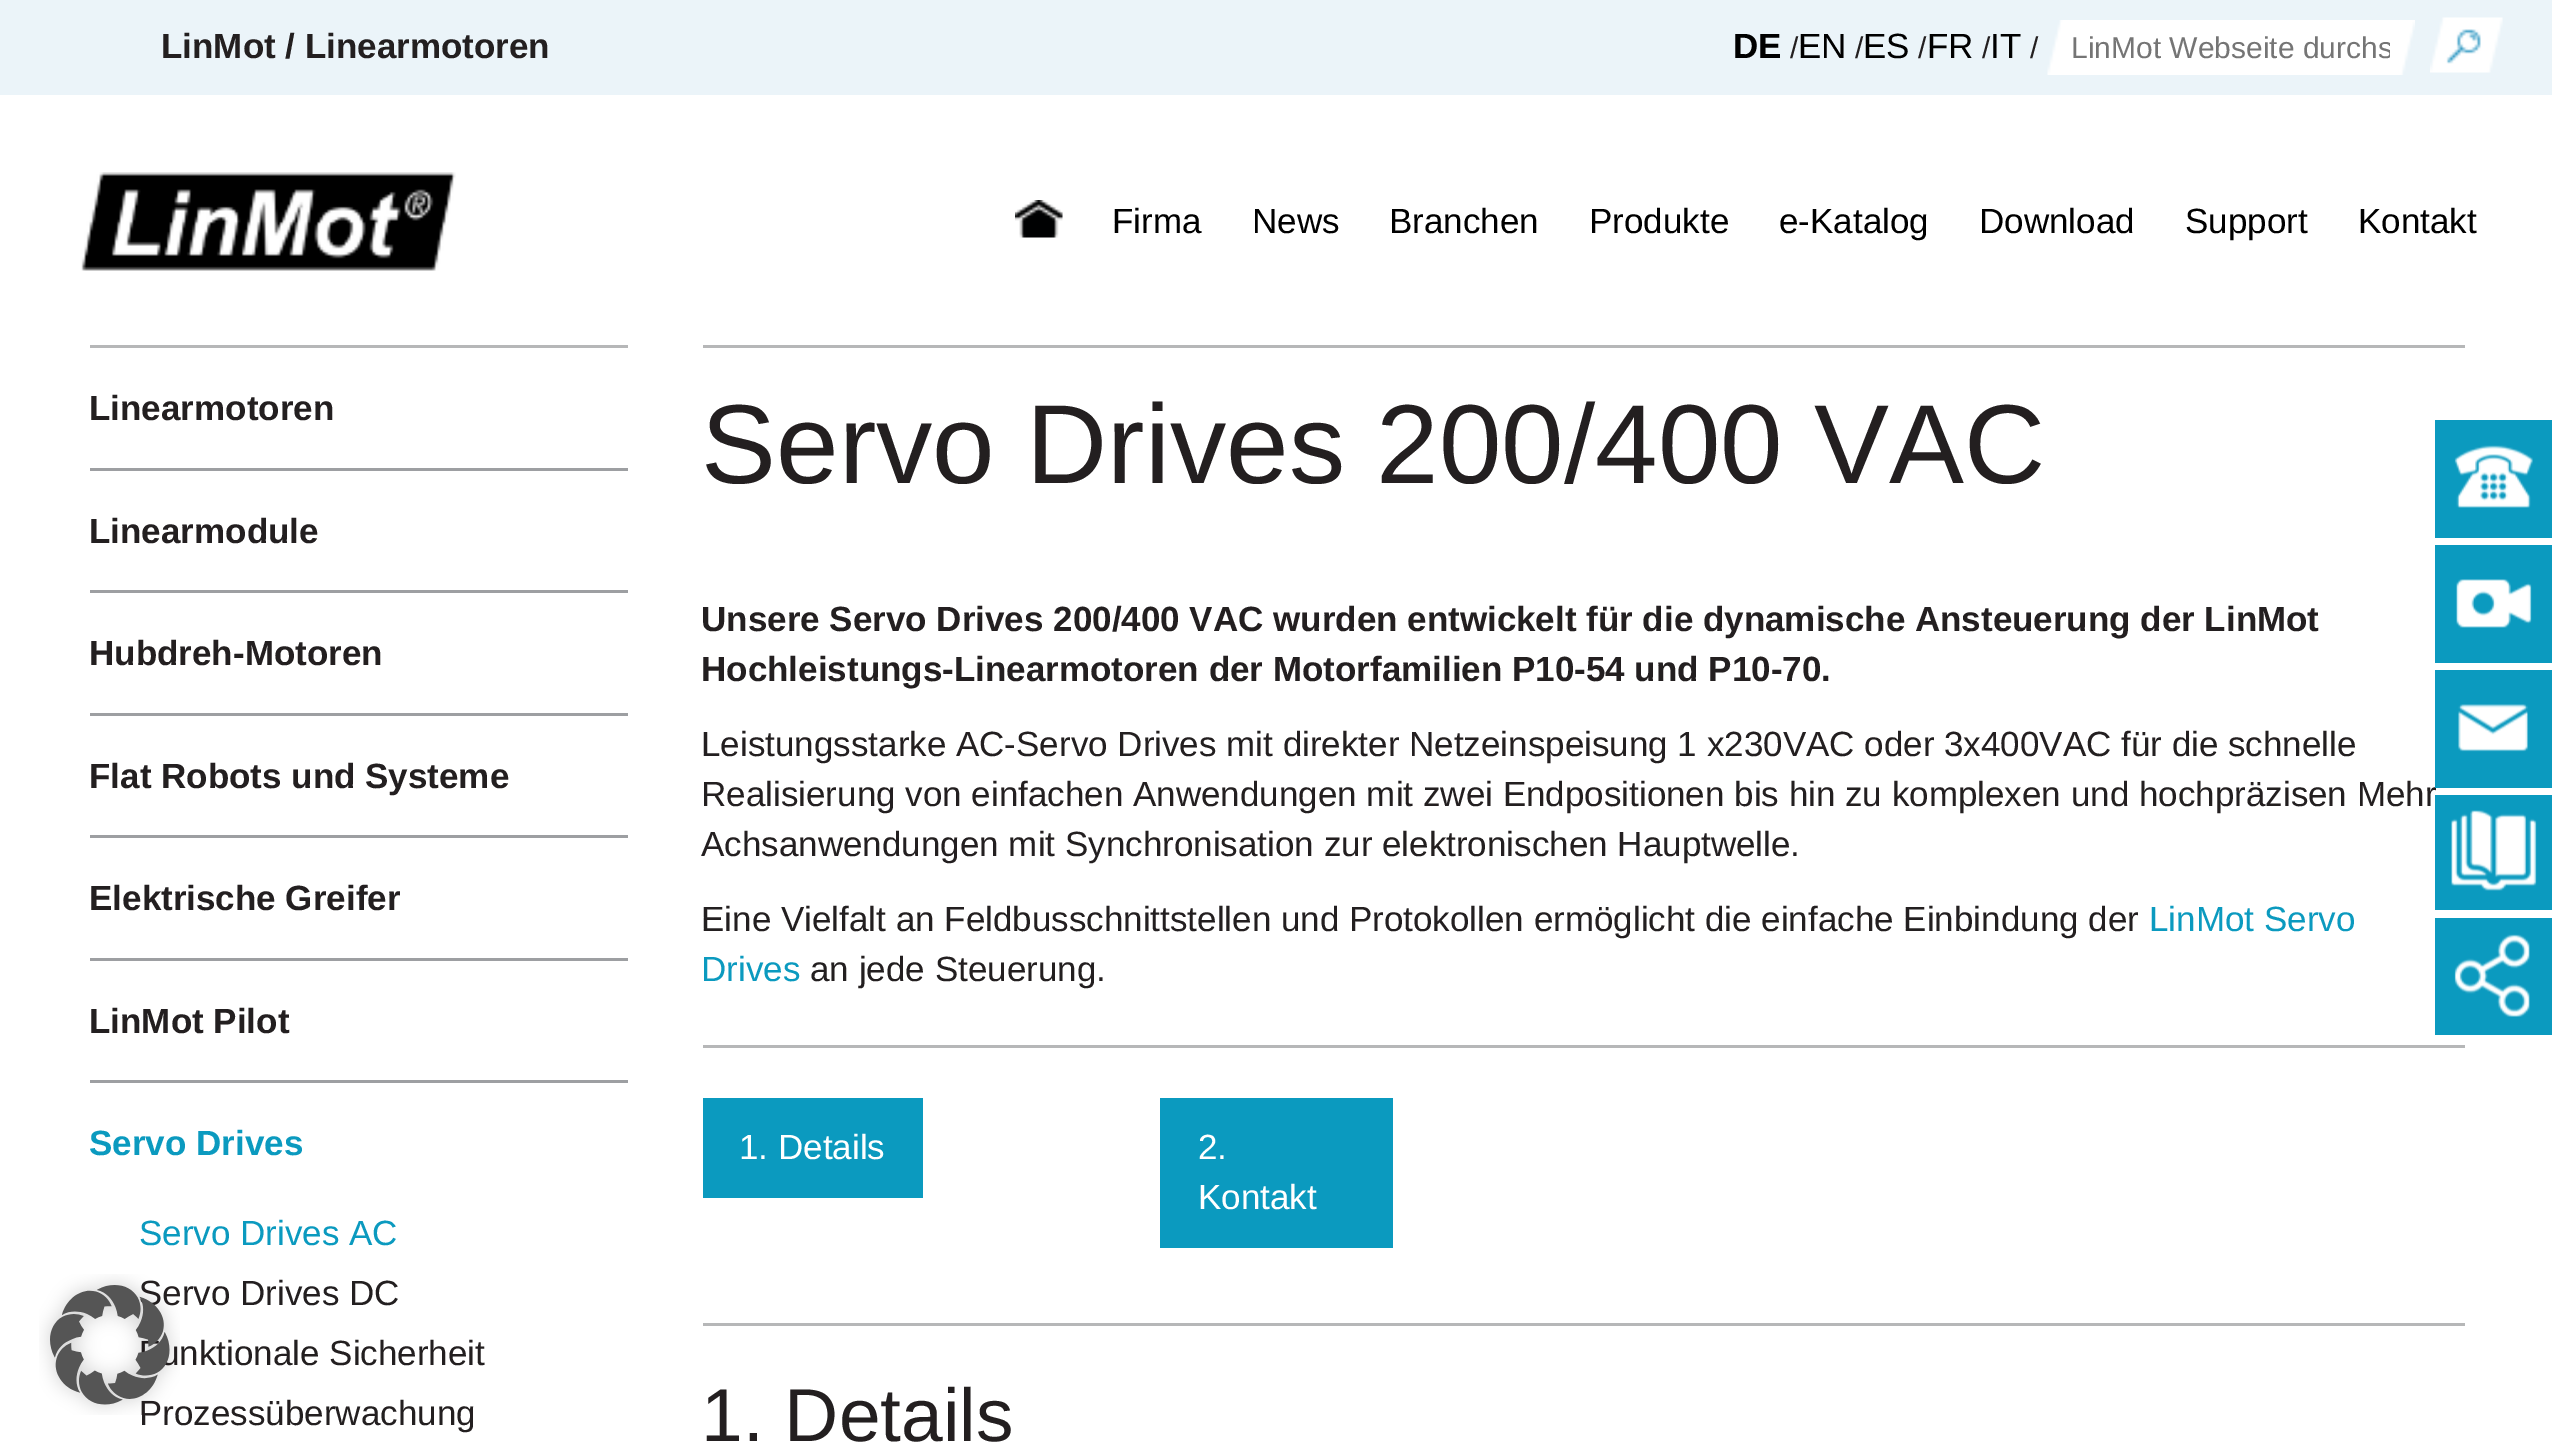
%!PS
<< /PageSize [2552 1454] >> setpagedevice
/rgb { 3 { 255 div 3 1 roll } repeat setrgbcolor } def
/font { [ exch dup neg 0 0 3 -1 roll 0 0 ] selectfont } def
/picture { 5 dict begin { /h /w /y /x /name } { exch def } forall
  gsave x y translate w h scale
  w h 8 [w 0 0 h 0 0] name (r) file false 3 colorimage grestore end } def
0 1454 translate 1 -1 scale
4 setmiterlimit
255 255 255 rgb
0 0 2552 1454 rectfill
235 244 249 rgb
0 0 2552 95 rectfill
(img/1.rgb) 2047 20 368 55 picture
(img/2.rgb) 2430 17 73 56 picture
(img/3.rgb) 81 172 375 99 picture
(img/4.rgb) 1015 200 48 38 picture
[
  [90 345 538 3 182 183 184]
  [90 468 538 3 157 159 162]
  [90 590 538 3 157 159 162]
  [90 713 538 3 157 159 162]
  [90 835 538 3 157 159 162]
  [90 958 538 3 157 159 162]
  [90 1080 538 3 157 159 162]
  [703 345 1762 3 182 183 184]
  [703 1045 1762 3 182 183 184]
  [703 1098 220 100 11 154 191]
  [1160 1098 233 150 11 154 191]
  [703 1323 1762 3 182 183 184]
  [2435 420 117 118 11 154 191]
] { aload pop rgb rectfill } forall
(img/5.rgb) 2454 445 79 63 picture
2435 545 117 118 rectfill
(img/6.rgb) 2456 579 76 49 picture
2435 918 117 117 rectfill
(img/9.rgb) 2454 934 76 83 picture
/LiberationSans-Bold 35 font
35 31 32 rgb
161 58 moveto (LinMot / Linearmotoren) show
0 0 0 rgb
1733 58 moveto (DE) show
/LiberationSans-Regular 30 font
35 31 32 rgb
1790 58 moveto (/) show
/LiberationSans-Regular 35 font
0 0 0 rgb
1798 58 moveto (EN) show
/LiberationSans-Regular 30 font
35 31 32 rgb
1855 58 moveto (/) show
/LiberationSans-Regular 35 font
0 0 0 rgb
1863 58 moveto (ES) show
/LiberationSans-Regular 30 font
35 31 32 rgb
1918 58 moveto (/) show
/LiberationSans-Regular 35 font
0 0 0 rgb
1927 58 moveto (FR) show
/LiberationSans-Regular 30 font
35 31 32 rgb
1982 58 moveto (/) show
/LiberationSans-Regular 35 font
0 0 0 rgb
1990 58 moveto (IT) show
/LiberationSans-Regular 30 font
35 31 32 rgb
2030 58 moveto (/) show
gsave
2073 30 317 35 rectclip
117 117 117 rgb
2071 58 moveto (LinMot Webseite durchs) show
grestore
/LiberationSans-Regular 35 font
0 0 0 rgb
[
  [(Firma) 1112 233]
  [(News) 1252 233]
  [(Branchen) 1389 233]
  [(Produkte) 1589 233]
  [(e-Katalog) 1779 233]
  [(Download) 1979 233]
  [(Support) 2185 233]
  [(Kontakt) 2358 233]
] { aload pop moveto show } forall
/LiberationSans-Bold 35 font
35 31 32 rgb
[
  [(Linearmotoren) 89 420]
  [(Linearmodule) 89 543]
  [(Hubdreh-Motoren) 89 665]
  [(Flat Robots und Systeme) 89 788]
  [(Elektrische Greifer) 89 910]
  [(LinMot Pilot) 89 1033]
] { aload pop moveto show } forall
11 154 191 rgb
89 1155 moveto (Servo Drives) show
/LiberationSans-Regular 35 font
139 1245 moveto (Servo Drives AC) show
35 31 32 rgb
[
  [(Servo Drives DC) 139 1305]
  [(unktionale Sicherheit) 160 1365]
  [(Prozessüberwachung) 139 1425]
] { aload pop moveto show } forall
/LiberationSans-Regular 112.5 font
701 483 moveto (Servo Drives 200/400 VAC) show
/LiberationSans-Bold 35 font
701 631 moveto (Unsere Servo Drives 200/400 VAC wurden entwickelt für die dynamische Ansteuerung der LinMot) show
701 681 moveto (Hochleistungs-Linearmotoren der Motorfamilien P10-54 und P10-70.) show
/LiberationSans-Regular 35 font
[
  [(Leistungsstarke AC-Servo Drives mit direkter Netzeinspeisung 1 x230VAC oder 3x400VAC für die schnelle) 701 756]
  [(Realisierung von einfachen Anwendungen mit zwei Endpositionen bis hin zu komplexen und hochpräzisen Mehr) 701 806]
  [(Achsanwendungen mit Synchronisation zur elektronischen Hauptwelle.) 701 856]
  [(Eine Vielfalt an Feldbusschnittstellen und Protokollen ermöglicht die einfache Einbindung der) 701 931]
] { aload pop moveto show } forall
11 154 191 rgb
2149 931 moveto (LinMot Servo) show
701 981 moveto (Drives) show
35 31 32 rgb
810 981 moveto (an jede Steuerung.) show
255 255 255 rgb
[
  [(1. Details) 739 1159]
  [(2.) 1198 1159]
  [(Kontakt) 1198 1209]
] { aload pop moveto show } forall
/LiberationSans-Regular 75 font
35 31 32 rgb
701 1441 moveto (1. Details) show
11 154 191 rgb
2435 670 117 118 rectfill
(img/7.rgb) 2458 704 70 48 picture
2435 795 117 115 rectfill
(img/8.rgb) 2451 810 86 81 picture
(img/10.rgb) 39 1274 141 141 picture
showpage
